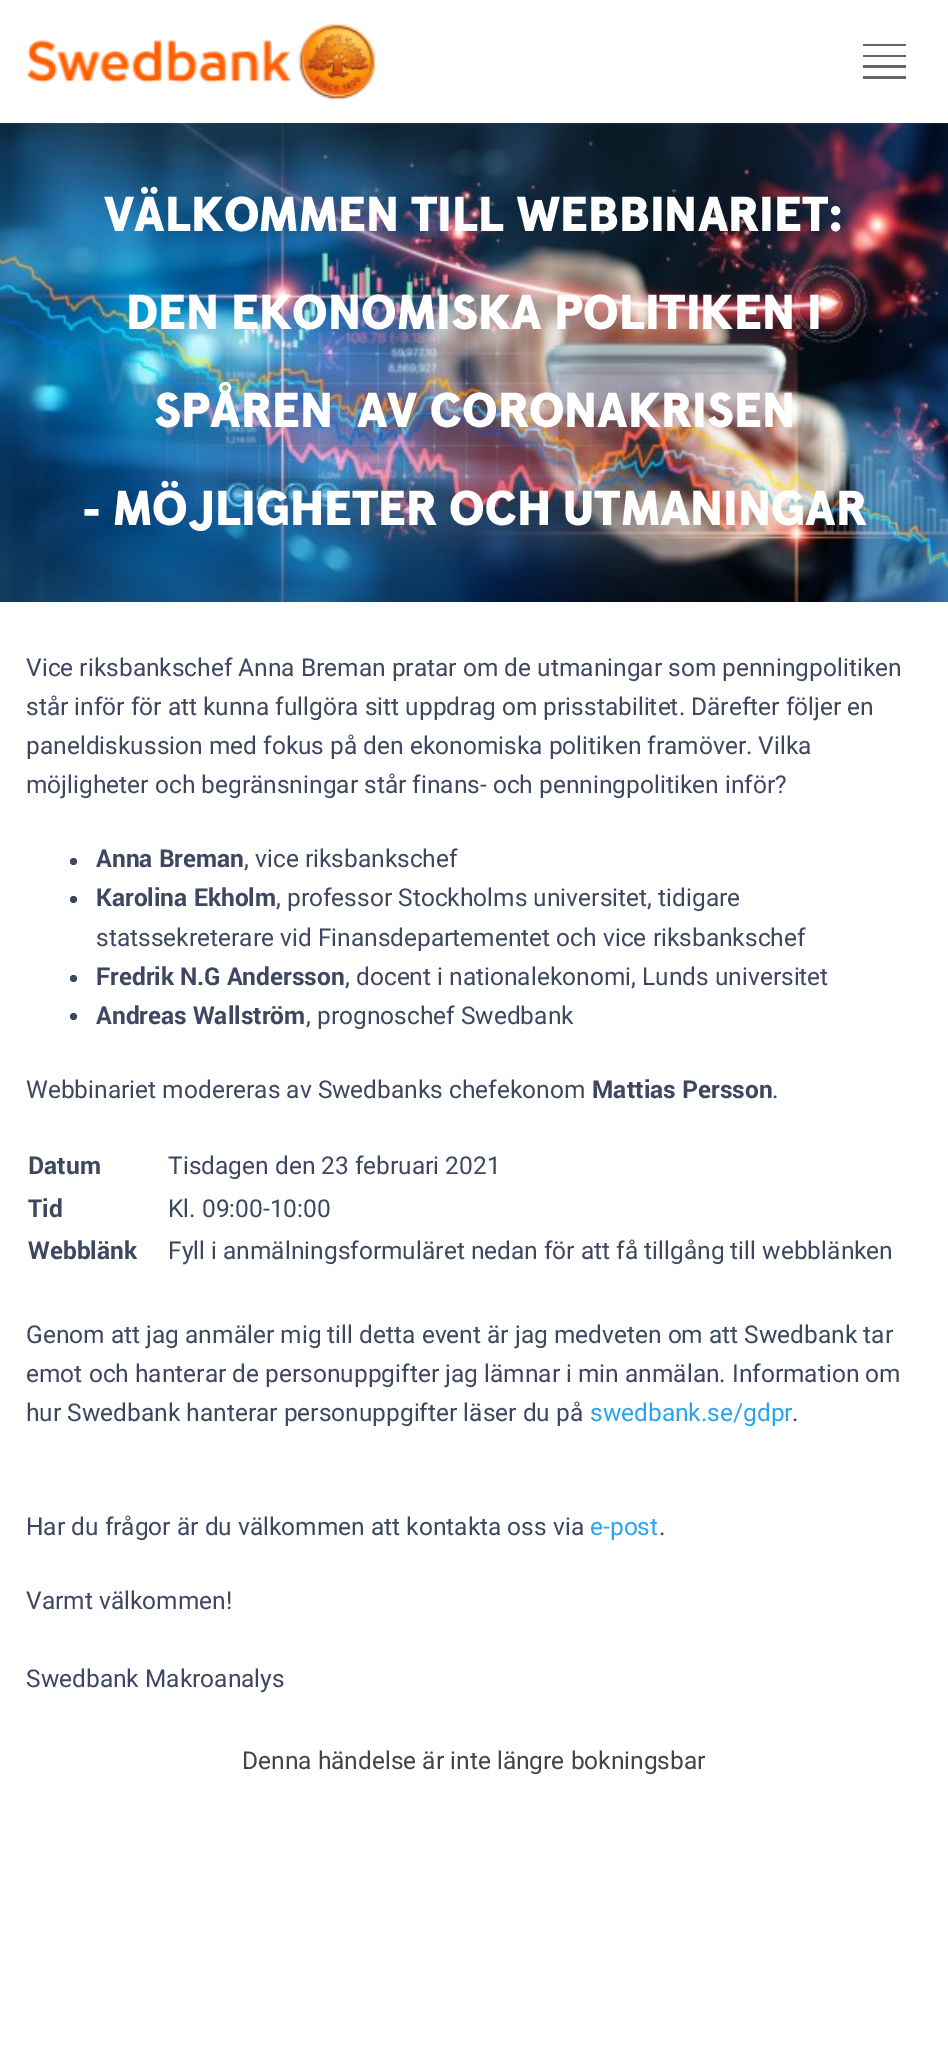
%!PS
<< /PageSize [948 2052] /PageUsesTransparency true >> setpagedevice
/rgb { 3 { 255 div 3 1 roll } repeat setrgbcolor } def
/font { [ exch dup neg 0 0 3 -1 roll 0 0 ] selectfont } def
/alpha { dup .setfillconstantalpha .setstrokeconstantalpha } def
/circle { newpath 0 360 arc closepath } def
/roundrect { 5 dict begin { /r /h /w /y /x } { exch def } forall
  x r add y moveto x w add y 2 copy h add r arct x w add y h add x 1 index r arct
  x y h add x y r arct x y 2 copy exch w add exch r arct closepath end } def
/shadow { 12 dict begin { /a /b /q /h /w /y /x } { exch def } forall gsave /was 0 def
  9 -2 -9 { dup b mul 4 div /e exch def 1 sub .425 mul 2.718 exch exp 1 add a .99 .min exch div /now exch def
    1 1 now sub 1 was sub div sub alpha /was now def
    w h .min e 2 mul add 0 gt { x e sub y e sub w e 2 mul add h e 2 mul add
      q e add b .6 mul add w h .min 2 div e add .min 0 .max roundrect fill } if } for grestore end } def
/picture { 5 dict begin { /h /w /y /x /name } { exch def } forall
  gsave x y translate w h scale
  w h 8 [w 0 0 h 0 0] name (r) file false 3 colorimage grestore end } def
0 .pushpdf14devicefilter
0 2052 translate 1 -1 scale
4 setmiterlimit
255 255 255 rgb
0 0 948 2052 rectfill
(img/2.rgb) 0 123 948 479 picture
86 95 113 rgb
-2 -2 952 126 0 1 0.2 shadow
255 255 255 rgb
0 0 948 123 rectfill
(img/1.rgb) 27 24 350 76 picture
102 102 102 rgb
863 79 moveto 906 79 lineto 906 76 lineto 863 76 lineto closepath 863 44 moveto 863 46 lineto 906 46 lineto 906 44 lineto closepath 863 57 moveto 906 57 lineto 906 55 lineto 863 55 lineto closepath 863 68 moveto 906 68 lineto 906 65 lineto 863 65 lineto closepath fill
61 71 96 rgb
73.5 861.5 3.5 circle fill
73.5 899.5 3.5 circle fill
73.5 978.5 3.5 circle fill
73.5 1016.5 3.5 circle fill
/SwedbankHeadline-Black 49 font
255 255 255 rgb
[
  [(VÄLKOMMEN TILL WEBBINARIET:) 104 231]
  [(DEN EKONOMISKA POLITIKEN I) 126 329]
  [(SPÅREN  AV CORONAKRISEN) 154 427]
  [(- MÖJLIGHETER OCH UTMANINGAR) 82 525]
] { aload pop moveto show } forall
/Roboto-Regular 24.5 font
61 71 96 rgb
[
  [(Vice riksbankschef Anna Breman pratar om de utmaningar som penningpolitiken) 26 676]
  [(står inför för att kunna fullgöra sitt uppdrag om prisstabilitet. Därefter följer en) 26 715]
  [(paneldiskussion med fokus på den ekonomiska politiken framöver. Vilka) 26 754]
  [(möjligheter och begränsningar står finans- och penningpolitiken inför?) 26 793]
] { aload pop moveto show } forall
/Roboto-Bold 24.5 font
96 867 moveto (Anna Breman) show
/Roboto-Regular 24.5 font
244 867 moveto (, vice riksbankschef) show
/Roboto-Bold 24.5 font
96 906 moveto (Karolina Ekholm) show
/Roboto-Regular 24.5 font
276 906 moveto (, professor Stockholms universitet, tidigare) show
96 946 moveto (statssekreterare vid Finansdepartementet och vice riksbankschef) show
/Roboto-Bold 24.5 font
96 985 moveto (Fredrik N.G Andersson) show
/Roboto-Regular 24.5 font
345 985 moveto (, docent i nationalekonomi, Lunds universitet) show
/Roboto-Bold 24.5 font
96 1024 moveto (Andreas Wallström) show
/Roboto-Regular 24.5 font
306 1024 moveto (, prognoschef Swedbank) show
26 1098 moveto (Webbinariet modereras av Swedbanks chefekonom) show
/Roboto-Bold 24.5 font
592 1098 moveto (Mattias Persson) show
/Roboto-Regular 24.5 font
772 1098 moveto (.) show
/Roboto-Bold 24.5 font
28 1174 moveto (Datum) show
/Roboto-Regular 24.5 font
168 1174 moveto (Tisdagen den 23 februari 2021) show
/Roboto-Bold 24.5 font
28 1217 moveto (Tid) show
/Roboto-Regular 24.5 font
168 1217 moveto (Kl. 09:00-10:00) show
/Roboto-Bold 24.5 font
28 1259 moveto (Webblänk) show
/Roboto-Regular 24.5 font
[
  [(Fyll i anmälningsformuläret nedan för att få tillgång till webblänken) 168 1259]
  [(Genom att jag anmäler mig till detta event är jag medveten om att Swedbank tar) 26 1343]
  [(emot och hanterar de personuppgifter jag lämnar i min anmälan. Information om) 26 1382]
  [(hur Swedbank hanterar personuppgifter läser du på) 26 1421]
] { aload pop moveto show } forall
42 163 240 rgb
590 1421 moveto (swedbank.se/gdpr) show
61 71 96 rgb
792 1421 moveto (.) show
26 1535 moveto (Har du frågor är du välkommen att kontakta oss via) show
42 163 240 rgb
590 1535 moveto (e-post) show
61 71 96 rgb
[
  [(.) 659 1535]
  [(Varmt välkommen!) 26 1609]
  [(Swedbank Makroanalys) 26 1687]
] { aload pop moveto show } forall
68 68 68 rgb
242 1769 moveto (Denna händelse är inte längre bokningsbar) show
.poppdf14devicefilter showpage
